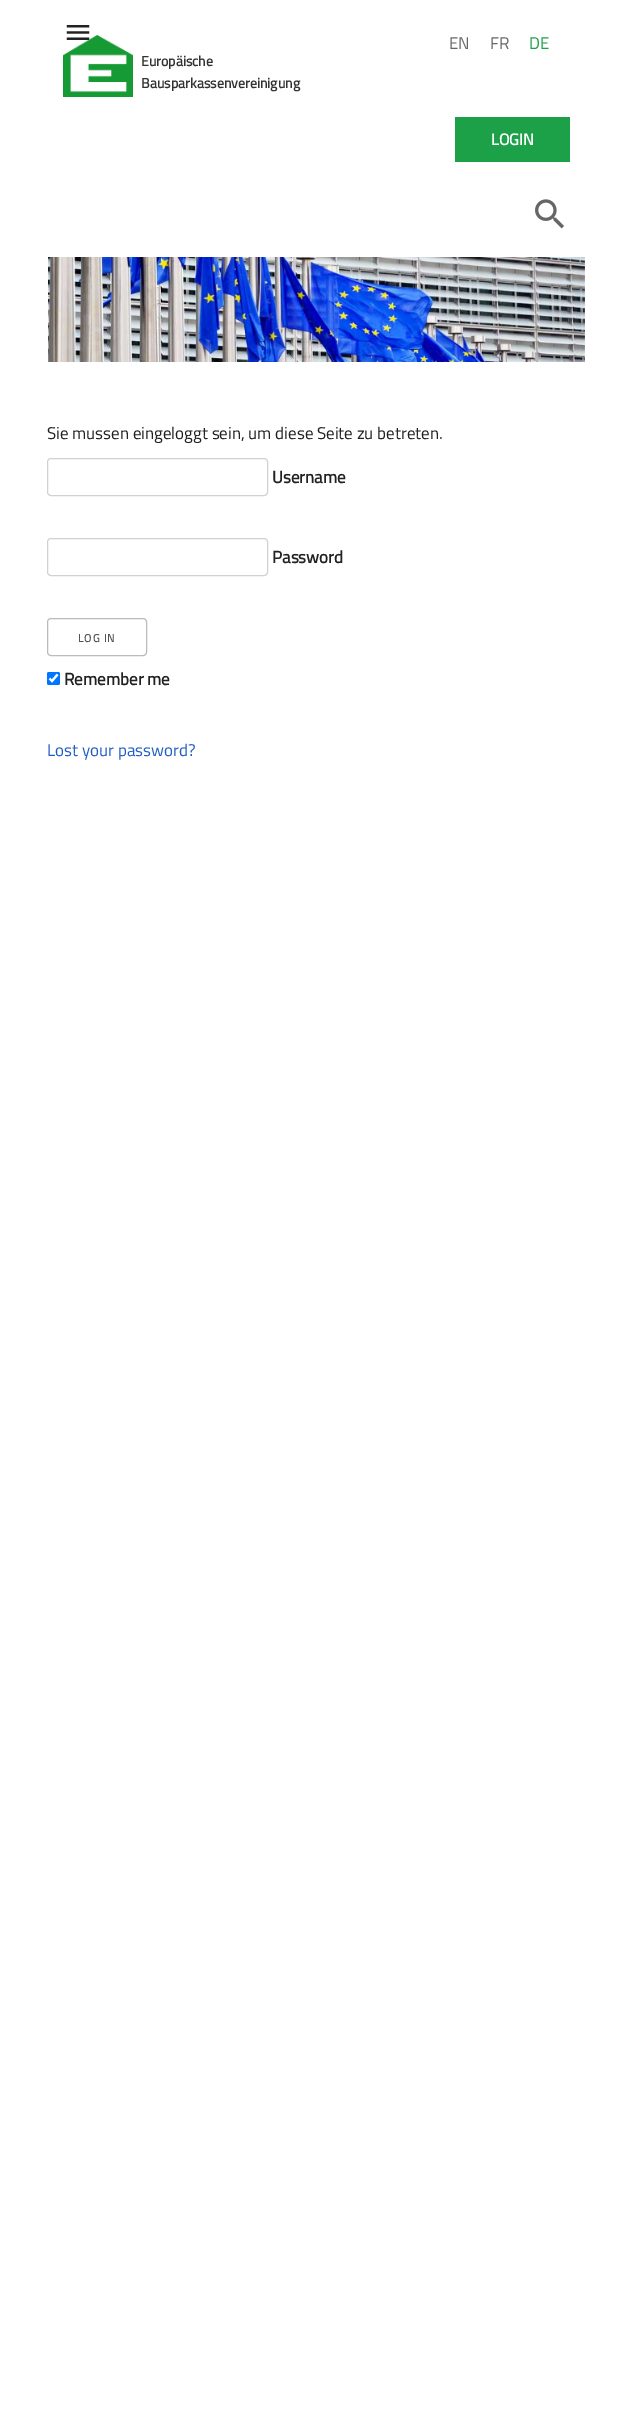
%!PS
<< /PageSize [633 2426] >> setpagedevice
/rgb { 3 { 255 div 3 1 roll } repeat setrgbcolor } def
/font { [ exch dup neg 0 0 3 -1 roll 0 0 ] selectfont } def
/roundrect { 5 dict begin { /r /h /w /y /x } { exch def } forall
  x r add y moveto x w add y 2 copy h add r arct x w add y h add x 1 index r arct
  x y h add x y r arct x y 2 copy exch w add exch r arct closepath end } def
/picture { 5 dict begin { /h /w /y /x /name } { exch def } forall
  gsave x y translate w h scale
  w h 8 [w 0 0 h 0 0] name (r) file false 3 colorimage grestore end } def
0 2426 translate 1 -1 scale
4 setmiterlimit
255 255 255 rgb
0 0 633 2426 rectfill
(img/2.rgb) 63 35 70 62 picture
(img/1.rgb) 66 25 24 15 picture
28 161 73 rgb
455 117 115 45 rectfill
(img/3.rgb) 535 199 29 30 picture
(img/4.rgb) 48 257 537 105 picture
209 209 209 rgb
47.5 458.5 220 37 3.5 roundrect stroke
47.5 538.5 220 37 3.5 roundrect stroke
187 187 187 rgb
47.5 618.5 99 37 3.5 roundrect stroke
0 117 255 rgb
47 672 13 13 2 roundrect fill
255 255 255 rgb
2.1 setlinewidth
49.5 678.5 moveto 52 681 lineto 57.5 674.5 lineto stroke
/TitilliumWeb-Bold 14 font
51 51 51 rgb
141 66 moveto (Europäische) show
141 88 moveto (Bausparkassenvereinigung) show
/TitilliumWeb-Regular 17 font
102 102 102 rgb
449 49 moveto (EN) show
490 49 moveto (FR) show
28 161 73 rgb
529 49 moveto (DE) show
/TitilliumWeb-Bold 16 font
255 255 255 rgb
491 145 moveto (LOGIN) show
/TitilliumWeb-Regular 17 font
34 34 34 rgb
47 439 moveto (Sie mussen eingeloggt sein, um diese Seite zu betreten.) show
/TitilliumWeb-Bold 17 font
272 483 moveto (Username) show
272 563 moveto (Password) show
/TitilliumWeb-Bold 11 font
85 85 85 rgb
78 642 moveto 1 0 (LOG IN) ashow
/TitilliumWeb-Bold 17 font
34 34 34 rgb
64 685 moveto (Remember me) show
/TitilliumWeb-Regular 17 font
34 94 196 rgb
47 756 moveto (Lost your password?) show
showpage
